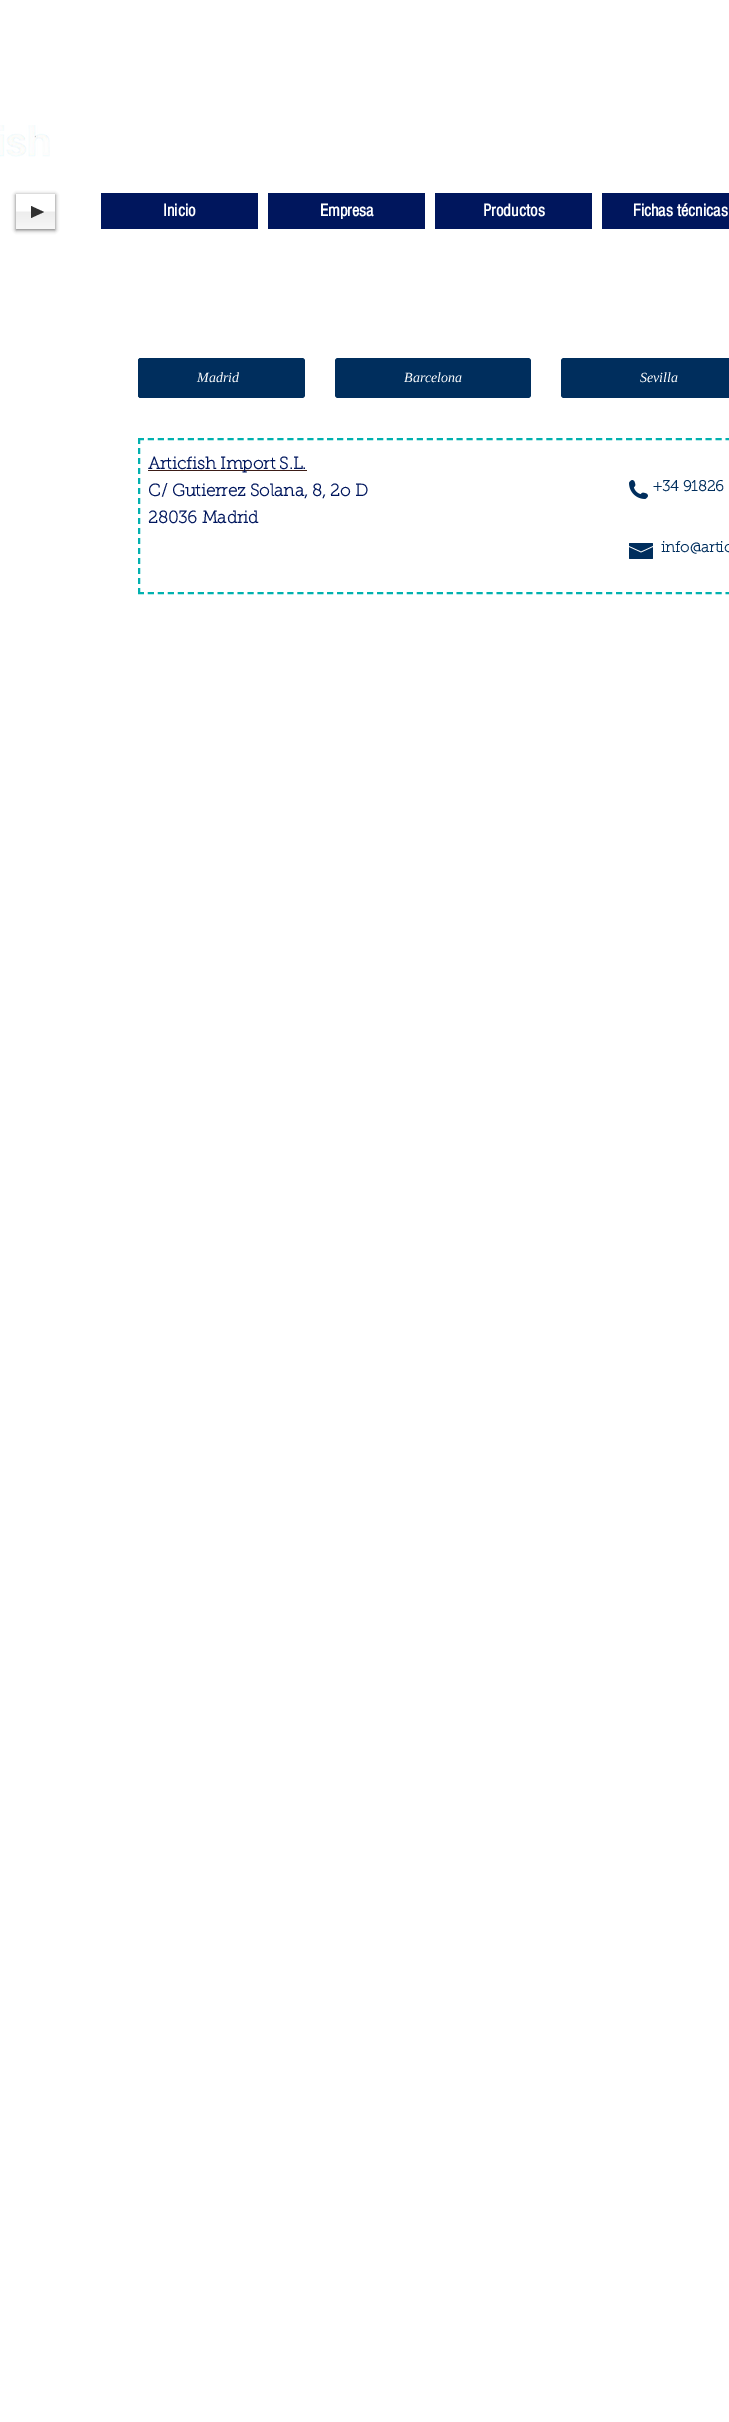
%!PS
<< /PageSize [729 2422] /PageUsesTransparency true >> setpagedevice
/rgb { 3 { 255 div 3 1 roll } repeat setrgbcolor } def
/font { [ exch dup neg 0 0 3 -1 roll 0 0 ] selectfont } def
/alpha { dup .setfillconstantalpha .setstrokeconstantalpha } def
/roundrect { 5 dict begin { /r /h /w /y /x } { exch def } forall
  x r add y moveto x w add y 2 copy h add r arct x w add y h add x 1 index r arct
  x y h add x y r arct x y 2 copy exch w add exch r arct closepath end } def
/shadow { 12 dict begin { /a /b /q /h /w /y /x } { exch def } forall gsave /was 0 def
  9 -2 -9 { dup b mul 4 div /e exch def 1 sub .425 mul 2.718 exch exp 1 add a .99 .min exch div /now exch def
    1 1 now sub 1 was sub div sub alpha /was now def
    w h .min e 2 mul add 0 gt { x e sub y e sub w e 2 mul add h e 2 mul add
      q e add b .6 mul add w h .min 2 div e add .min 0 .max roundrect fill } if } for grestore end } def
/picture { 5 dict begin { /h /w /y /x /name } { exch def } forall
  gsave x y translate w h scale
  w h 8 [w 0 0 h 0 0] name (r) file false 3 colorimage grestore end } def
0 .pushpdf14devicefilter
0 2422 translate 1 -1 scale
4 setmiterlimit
255 255 255 rgb
0 0 729 2422 rectfill
(img/1.rgb) 0 125 50 32 picture
gsave
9 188 moveto 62 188 lineto 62 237 lineto 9 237 lineto closepath 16 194 moveto 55 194 lineto 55 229 lineto 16 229 lineto closepath eoclip newpath
0 0 0 rgb
16 195 39 35 0 2 0.6 shadow
grestore
(img/2.rgb) 16 211 39 18 picture
48 48 48 rgb
31 218 moveto 31 206 lineto 44 212 lineto closepath fill
[
  [101 193 157 36 0 22 93]
  [268 193 157 36 0 22 93]
  [435 193 157 36 0 22 93]
  [602 193 127 36 0 22 93]
] { aload pop rgb rectfill } forall
0 46 93 rgb
138 358 167 40 3 roundrect fill
138 358 159 40 3 roundrect fill
335 358 196 40 3 roundrect fill
561 358 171 40 3 roundrect fill
1 177 175 rgb
2 setlinewidth
[6 3.96] 0 setdash
138 439 moveto 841 439 lineto stroke
138 593 moveto 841 593 lineto stroke
[6 4] 0 setdash
139 438 moveto 139 594 lineto stroke
60 29 23 rgb
148 470 159 1 rectfill
(img/3.rgb) 629 480 19 19 picture
(img/4.rgb) 629 543 24 16 picture
/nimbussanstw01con-Bold 18 font
255 255 255 rgb
[
  [(Inicio) 163 216]
  [(Empresa) 320 216]
  [(Productos) 483 216]
  [(Fichas técnicas) 633 216]
] { aload pop moveto show } forall
/LiberationSerif-Italic 14 font
[
  [(Madrid) 197 382]
  [(Barcelona) 404 382]
  [(Sevilla) 640 382]
] { aload pop moveto show } forall
/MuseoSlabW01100-Bold 17 font
0 22 93 rgb
[
  [(Articfish Import S.L.) 148 469]
  [(C/ Gutierrez Solana, 8, 2o D) 148 496]
  [(28036 Madrid) 148 523]
] { aload pop moveto show } forall
/MuseoSlabW01100-Bold 15 font
0 46 93 rgb
653 491 moveto (+34 91826) show
661 552 moveto (info@artic) show
.poppdf14devicefilter showpage
